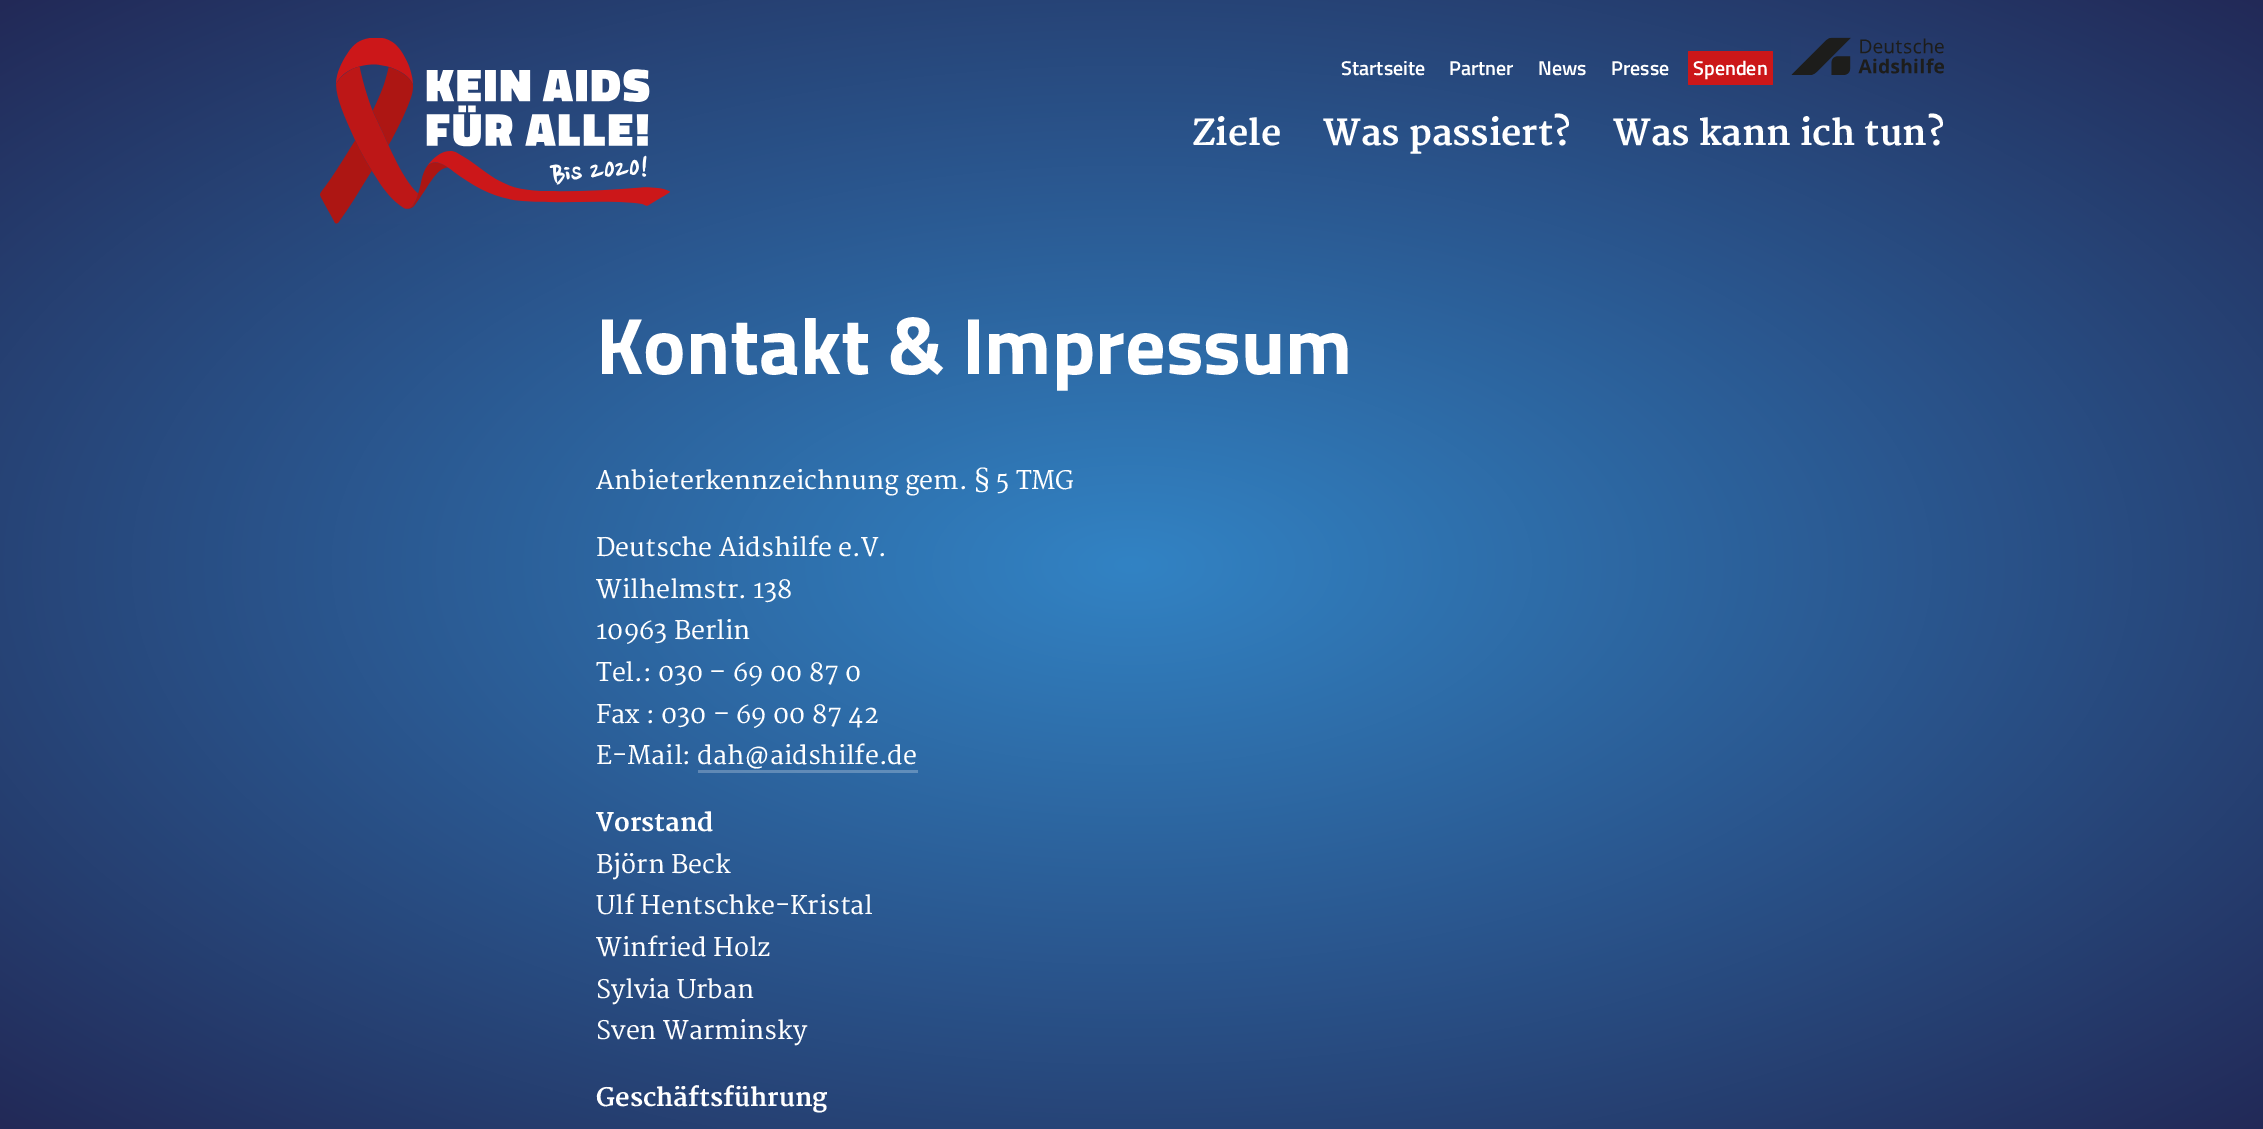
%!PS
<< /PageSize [2263 1129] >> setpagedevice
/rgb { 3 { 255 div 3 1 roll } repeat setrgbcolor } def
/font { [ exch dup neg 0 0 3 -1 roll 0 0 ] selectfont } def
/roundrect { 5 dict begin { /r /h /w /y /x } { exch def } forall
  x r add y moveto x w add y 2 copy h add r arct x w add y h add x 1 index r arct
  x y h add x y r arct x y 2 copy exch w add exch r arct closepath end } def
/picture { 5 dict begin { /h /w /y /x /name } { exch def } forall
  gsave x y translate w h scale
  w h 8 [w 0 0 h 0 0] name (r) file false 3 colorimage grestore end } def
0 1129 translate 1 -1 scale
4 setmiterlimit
255 255 255 rgb
0 0 2263 1129 rectfill
gsave 0 0 moveto 2263 0 lineto 2263 1129 lineto 0 1129 lineto closepath clip newpath 1132 565 translate 1601 799 scale
<< /ShadingType 3 /ColorSpace /DeviceRGB /Coords [0 0 0 0 0 1] /Extend [true true] /Function << /FunctionType 2 /Domain [0 1] /C0 [0.196 0.514 0.769] /C1 [0.133 0.161 0.341] /N 1 >> >> shfill grestore
gsave 698 770 moveto 918 770 lineto 918 773 lineto 698 773 lineto closepath clip newpath 1132 565 translate 1601 799 scale
<< /ShadingType 3 /ColorSpace /DeviceRGB /Coords [0 0 0 0 0 1] /Extend [true true] /Function << /FunctionType 2 /Domain [0 1] /C0 [0.396 0.635 0.827] /C1 [0.349 0.373 0.506] /N 1 >> >> shfill grestore
(img/1.rgb) 320 38 350 186 picture
204 23 25 rgb
1688 51 85 34 1 roundrect fill
(img/2.rgb) 1791 37 153 38 picture
/TitilliumWeb-SemiBold 20 font
255 255 255 rgb
[
  [(Startseite) 1341 75]
  [(Partner) 1449 75]
  [(News) 1538 75]
  [(Presse) 1611 75]
  [(Spenden) 1693 75]
] { aload pop moveto show } forall
/Merriweather-Bold 35 font
[
  [(Ziele) 1192 145]
  [(Was passiert?) 1323 145]
  [(Was kann ich tun?) 1613 145]
] { aload pop moveto show } forall
/TitilliumWeb-Bold 80 font
596 374 moveto (Kontakt & Impressum) show
/Merriweather-Regular 25 font
[
  [(Anbieterkennzeichnung gem. § 5 TMG) 596 489]
  [(Deutsche Aidshilfe e.V.) 596 556]
  [(Wilhelmstr. 138) 596 598]
  [(10963 Berlin) 596 639]
  [(Tel.: 030 – 69 00 87 0) 596 681]
  [(Fax : 030 – 69 00 87 42) 596 723]
  [(E-Mail: dah@aidshilfe.de) 596 764]
] { aload pop moveto show } forall
/Merriweather-Bold 25 font
596 831 moveto (Vorstand) show
/Merriweather-Regular 25 font
[
  [(Björn Beck) 596 873]
  [(Ulf Hentschke-Kristal) 596 914]
  [(Winfried Holz) 596 956]
  [(Sylvia Urban) 596 998]
  [(Sven Warminsky) 596 1039]
] { aload pop moveto show } forall
/Merriweather-Bold 25 font
596 1106 moveto (Geschäftsführung) show
showpage
